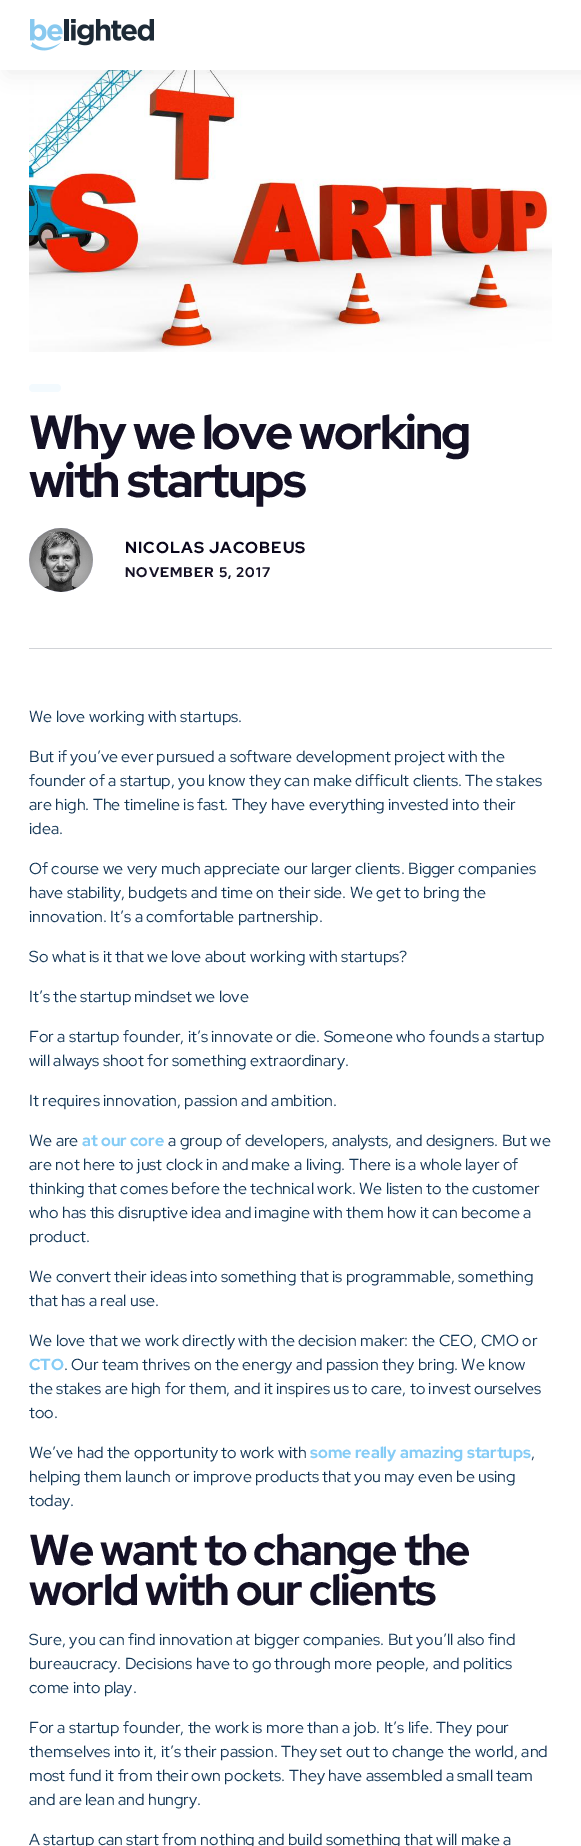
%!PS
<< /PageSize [581 1846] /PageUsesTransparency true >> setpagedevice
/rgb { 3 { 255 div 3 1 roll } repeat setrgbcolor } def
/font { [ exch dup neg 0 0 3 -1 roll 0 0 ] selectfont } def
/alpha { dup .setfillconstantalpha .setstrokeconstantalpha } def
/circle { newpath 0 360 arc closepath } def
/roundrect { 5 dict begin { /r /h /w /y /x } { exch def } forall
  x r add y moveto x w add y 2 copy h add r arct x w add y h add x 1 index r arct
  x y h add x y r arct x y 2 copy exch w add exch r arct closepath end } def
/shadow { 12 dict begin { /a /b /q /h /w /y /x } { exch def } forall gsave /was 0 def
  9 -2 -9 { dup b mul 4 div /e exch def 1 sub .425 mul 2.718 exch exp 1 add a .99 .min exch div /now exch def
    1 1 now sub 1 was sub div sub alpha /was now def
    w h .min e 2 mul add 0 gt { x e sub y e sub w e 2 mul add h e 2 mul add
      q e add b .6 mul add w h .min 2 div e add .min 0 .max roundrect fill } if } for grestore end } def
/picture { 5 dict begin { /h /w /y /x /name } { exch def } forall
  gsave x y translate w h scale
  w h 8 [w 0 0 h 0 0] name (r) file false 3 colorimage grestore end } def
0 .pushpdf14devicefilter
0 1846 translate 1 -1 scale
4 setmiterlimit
255 255 255 rgb
0 0 581 1846 rectfill
(img/2.rgb) 29 70 523 282 picture
0 0 0 rgb
8 -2 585 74 0 10 0.08 shadow
255 255 255 rgb
0 0 581 70 rectfill
(img/1.rgb) 30 19 124 32 picture
243 250 254 rgb
29 384 32 8 4 roundrect fill
220 223 255 rgb
61 560 32 circle fill
(img/3.rgb) 29 528 64 64 picture
209 211 215 rgb
29 648 523 1 rectfill
/RedHatDisplay-Bold 48 font
20 17 37 rgb
29 449 moveto -1.9 0 (Why we love working) ashow
29 497 moveto -1.9 0 (with startups) ashow
/RedHatDisplay-Bold 16 font
10 7 27 rgb
125 553 moveto 1 0 (NICOLAS JACOBEUS) ashow
/RedHatDisplay-Bold 14 font
20 17 37 rgb
125 577 moveto 1 0 (NOVEMBER 5, 2017) ashow
/RedHatDisplay-Regular 16 font
20 55 86 rgb
[
  [(We love working with startups.) 29 722]
  [(But if you’ve ever pursued a software development project with the) 29 762]
  [(founder of a startup, you know they can make difficult clients. The stakes) 29 786]
  [(are high. The timeline is fast. They have everything invested into their) 29 810]
  [(idea.) 29 834]
  [(Of course we very much appreciate our larger clients. Bigger companies) 29 874]
  [(have stability, budgets and time on their side. We get to bring the) 29 898]
  [(innovation. It’s a comfortable partnership.) 29 922]
  [(So what is it that we love about working with startups?) 29 962]
  [(It’s the startup mindset we love) 29 1002]
  [(For a startup founder, it’s innovate or die. Someone who founds a startup) 29 1042]
  [(will always shoot for something extraordinary.) 29 1066]
  [(It requires innovation, passion and ambition.) 29 1106]
  [(We are) 29 1146]
] { aload pop moveto show } forall
/RedHatDisplay-Bold 16 font
133 204 246 rgb
82 1146 moveto (at our core) show
/RedHatDisplay-Regular 16 font
20 55 86 rgb
[
  [(a group of developers, analysts, and designers. But we) 168 1146]
  [(are not here to just clock in and make a living. There is a whole layer of) 29 1170]
  [(thinking that comes before the technical work. We listen to the customer) 29 1194]
  [(who has this disruptive idea and imagine with them how it can become a) 29 1218]
  [(product.) 29 1242]
  [(We convert their ideas into something that is programmable, something) 29 1282]
  [(that has a real use.) 29 1306]
  [(We love that we work directly with the decision maker: the CEO, CMO or) 29 1346]
] { aload pop moveto show } forall
/RedHatDisplay-Bold 16 font
133 204 246 rgb
29 1370 moveto (CTO) show
/RedHatDisplay-Regular 16 font
20 55 86 rgb
[
  [(. Our team thrives on the energy and passion they bring. We know) 64 1370]
  [(the stakes are high for them, and it inspires us to care, to invest ourselves) 29 1394]
  [(too.) 29 1418]
  [(We’ve had the opportunity to work with) 29 1458]
] { aload pop moveto show } forall
/RedHatDisplay-Bold 16 font
133 204 246 rgb
310 1458 moveto (some really amazing startups) show
/RedHatDisplay-Regular 16 font
20 55 86 rgb
[
  [(,) 531 1458]
  [(helping them launch or improve products that you may even be using) 29 1482]
  [(today.) 29 1506]
] { aload pop moveto show } forall
/RedHatDisplay-Bold 43.25 font
20 17 37 rgb
29 1565 moveto -1.3 0 (We want to change the) ashow
29 1605 moveto -1.3 0 (world with our clients) ashow
/RedHatDisplay-Regular 16 font
20 55 86 rgb
[
  [(Sure, you can find innovation at bigger companies. But you’ll also find) 29 1645]
  [(bureaucracy. Decisions have to go through more people, and politics) 29 1669]
  [(come into play.) 29 1693]
  [(For a startup founder, the work is more than a job. It’s life. They pour) 29 1733]
  [(themselves into it, it’s their passion. They set out to change the world, and) 29 1757]
  [(most fund it from their own pockets. They have assembled a small team) 29 1781]
  [(and are lean and hungry.) 29 1805]
  [(A startup can start from nothing and build something that will make a) 29 1845]
] { aload pop moveto show } forall
.poppdf14devicefilter showpage
